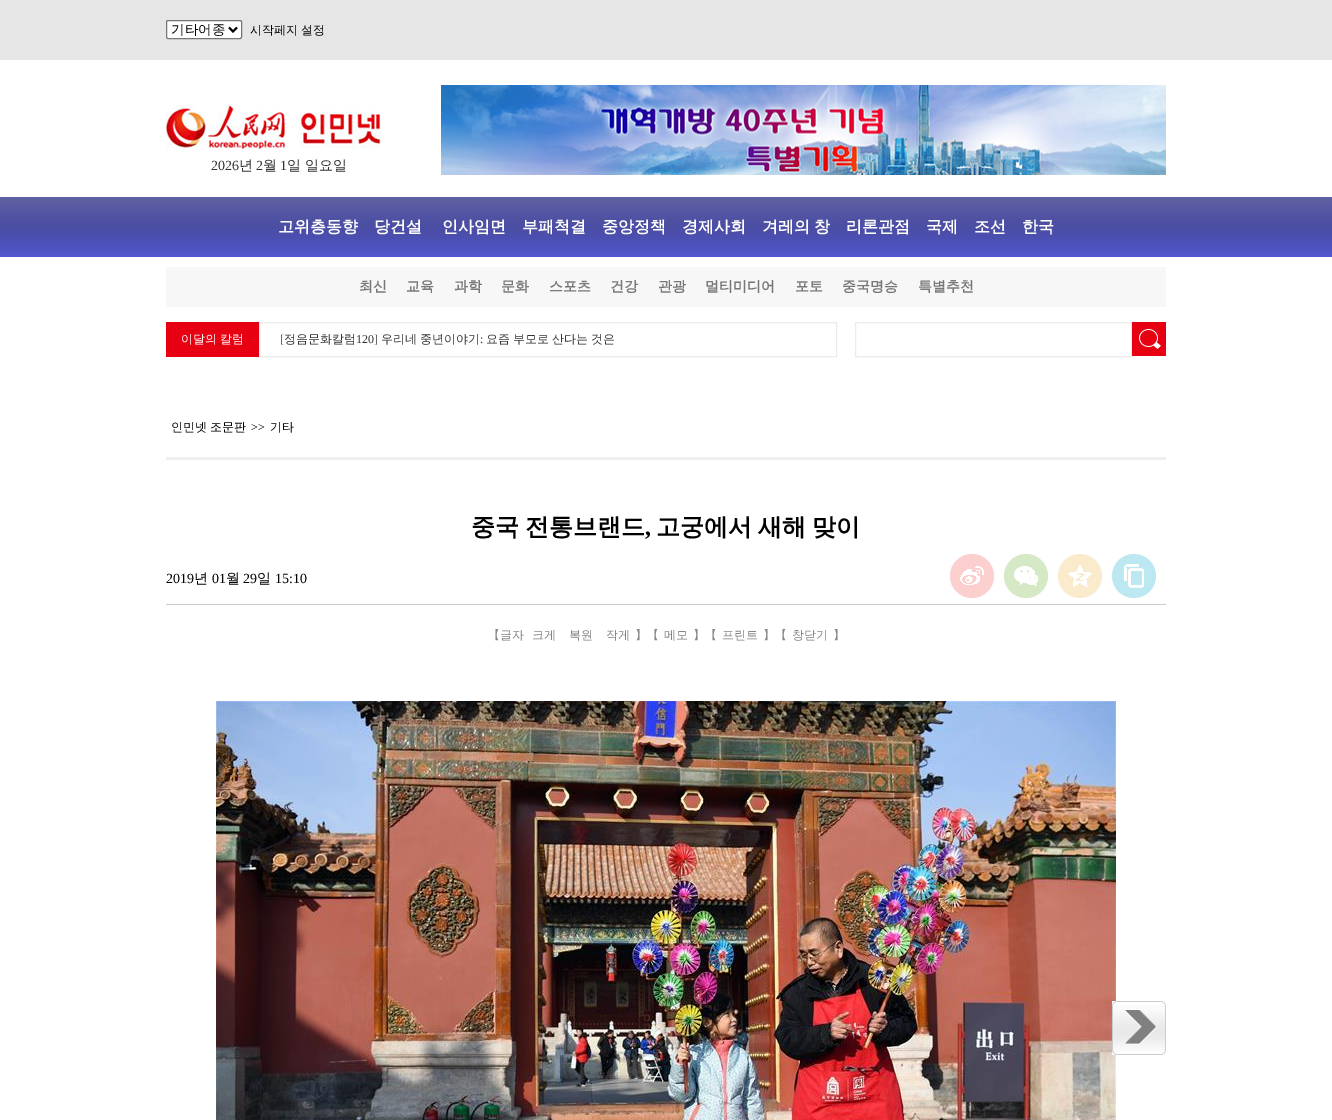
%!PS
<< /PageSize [1332 1120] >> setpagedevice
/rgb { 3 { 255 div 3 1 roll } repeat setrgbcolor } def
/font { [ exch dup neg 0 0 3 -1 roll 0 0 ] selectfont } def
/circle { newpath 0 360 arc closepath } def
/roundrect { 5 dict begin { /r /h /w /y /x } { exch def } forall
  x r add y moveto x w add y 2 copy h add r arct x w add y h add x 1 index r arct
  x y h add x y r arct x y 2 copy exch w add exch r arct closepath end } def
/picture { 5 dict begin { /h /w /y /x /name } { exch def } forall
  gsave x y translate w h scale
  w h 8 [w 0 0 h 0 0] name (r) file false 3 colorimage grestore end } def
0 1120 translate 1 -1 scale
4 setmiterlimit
255 255 255 rgb
0 0 1332 1120 rectfill
230 230 230 rgb
0 0 1332 60 rectfill
255 255 255 rgb
166.5 20.5 75 18 1.5 roundrect gsave fill grestore
118 118 118 rgb
stroke
0 0 0 rgb
2 setlinewidth
229 27.5 moveto 233 31.5 lineto 237 27.5 lineto stroke
(img/1.rgb) 166 105 215 44 picture
(img/2.rgb) 441 85 725 90 picture
(img/3.rgb) 0 197 1332 60 picture
247 247 247 rgb
166 267 1000 40 rectfill
231 0 18 rgb
166 322 93 35 rectfill
235 235 235 rgb
1 setlinewidth
259.5 322.5 577 34 rectstroke
855.5 322.5 276 34 rectstroke
(img/4.rgb) 1132 322 34 34 picture
239 239 239 rgb
166 457 1000 3 rectfill
252 207 207 rgb
972 576 22 circle fill
(img/5.rgb) 960 566 24 19 picture
214 233 198 rgb
1026 576 22 circle fill
(img/6.rgb) 1014 566 24 20 picture
250 235 204 rgb
1080 576 22 circle fill
(img/7.rgb) 1068 565 24 22 picture
188 232 241 rgb
1134 576 22 circle fill
(img/8.rgb) 1124 564 20 24 picture
202 202 202 rgb
166 604 1000 1 rectfill
(img/9.rgb) 216 701 900 419 picture
(img/10.rgb) 1112 1001 54 54 picture
/WenQuanYiZenHei-Medium 13.5 font
0 0 0 rgb
171 34 moveto (기타어종) show
/WenQuanYiZenHei-Medium 12 font
250 34 moveto -1 0 32 (시작페지 설정) widthshow
/LiberationSerif-Regular 14 font
51 51 51 rgb
211 170 moveto (2026) show
/WenQuanYiZenHei-Medium 14 font
239 170 moveto (년) show
/LiberationSerif-Regular 14 font
256 170 moveto (2) show
/WenQuanYiZenHei-Medium 14 font
263 170 moveto (월) show
/LiberationSerif-Regular 14 font
280 170 moveto (1) show
/WenQuanYiZenHei-Medium 14 font
287 170 moveto (일 일요일) show
/WenQuanYiZenHei-Bold 16 font
255 255 255 rgb
[
  [(고위층동향) 278 232]
  [(당건설) 374 232]
  [(인사임면) 442 232]
  [(부패척결) 522 232]
  [(중앙정책) 602 232]
  [(경제사회) 682 232]
] { aload pop moveto show } forall
762 232 moveto -1 0 32 (겨레의 창) widthshow
[
  [(리론관점) 846 232]
  [(국제) 926 232]
  [(조선) 974 232]
  [(한국) 1022 232]
] { aload pop moveto show } forall
/WenQuanYiZenHei-Bold 14 font
120 120 120 rgb
[
  [(최신) 359 291]
  [(교육) 406 291]
  [(과학) 454 291]
  [(문화) 501 291]
  [(스포츠) 549 291]
  [(건강) 610 291]
  [(관광) 658 291]
  [(멀티미디어) 705 291]
  [(포토) 795 291]
  [(중국명승) 842 291]
  [(특별추천) 918 291]
] { aload pop moveto show } forall
/WenQuanYiZenHei-Medium 12 font
255 255 255 rgb
181 343 moveto -1 0 32 (이달의 칼럼) widthshow
/LiberationSerif-Regular 12 font
51 51 51 rgb
280 343 moveto ([) show
/WenQuanYiZenHei-Medium 12 font
284 343 moveto (정음문화칼럼) show
/LiberationSerif-Regular 12 font
356 343 moveto (120]) show
/WenQuanYiZenHei-Medium 12 font
381 343 moveto -0.5 0 32 (우리네 중년이야기) widthshow
/LiberationSerif-Regular 12 font
480 343 moveto (:) show
/WenQuanYiZenHei-Medium 12 font
486 343 moveto -0.5 0 32 (요즘 부모로 산다는 것은) widthshow
0 0 0 rgb
171 431 moveto -1 0 32 (인민넷 조문판) widthshow
/LiberationSerif-Regular 12 font
251 431 moveto (>>) show
/WenQuanYiZenHei-Medium 12 font
270 431 moveto (기타) show
/WenQuanYiZenHei-Bold 24 font
471 535 moveto -1 0 32 (중국 전통브랜드) widthshow
/LiberationSerif-Bold 24 font
645 535 moveto (,) show
/WenQuanYiZenHei-Bold 24 font
656 535 moveto -1 0 32 (고궁에서 새해 맞이) widthshow
/LiberationSerif-Regular 14 font
166 583 moveto (2019) show
/WenQuanYiZenHei-Medium 14 font
194 583 moveto (년) show
/LiberationSerif-Regular 14 font
212 583 moveto (01) show
/WenQuanYiZenHei-Medium 14 font
226 583 moveto (월) show
/LiberationSerif-Regular 14 font
243 583 moveto (29) show
/WenQuanYiZenHei-Medium 14 font
257 583 moveto (일) show
/LiberationSerif-Regular 14 font
275 583 moveto (15:10) show
/WenQuanYiZenHei-Medium 12 font
133 133 133 rgb
[
  [(【글자) 488 639]
  [(크게) 532 639]
  [(복원) 569 639]
  [(작게) 606 639]
  [(】【) 635 639]
  [(메모) 664 639]
  [(】【) 693 639]
  [(프린트) 722 639]
  [(】【) 763 639]
  [(창닫기) 792 639]
  [(】) 833 639]
] { aload pop moveto show } forall
showpage
